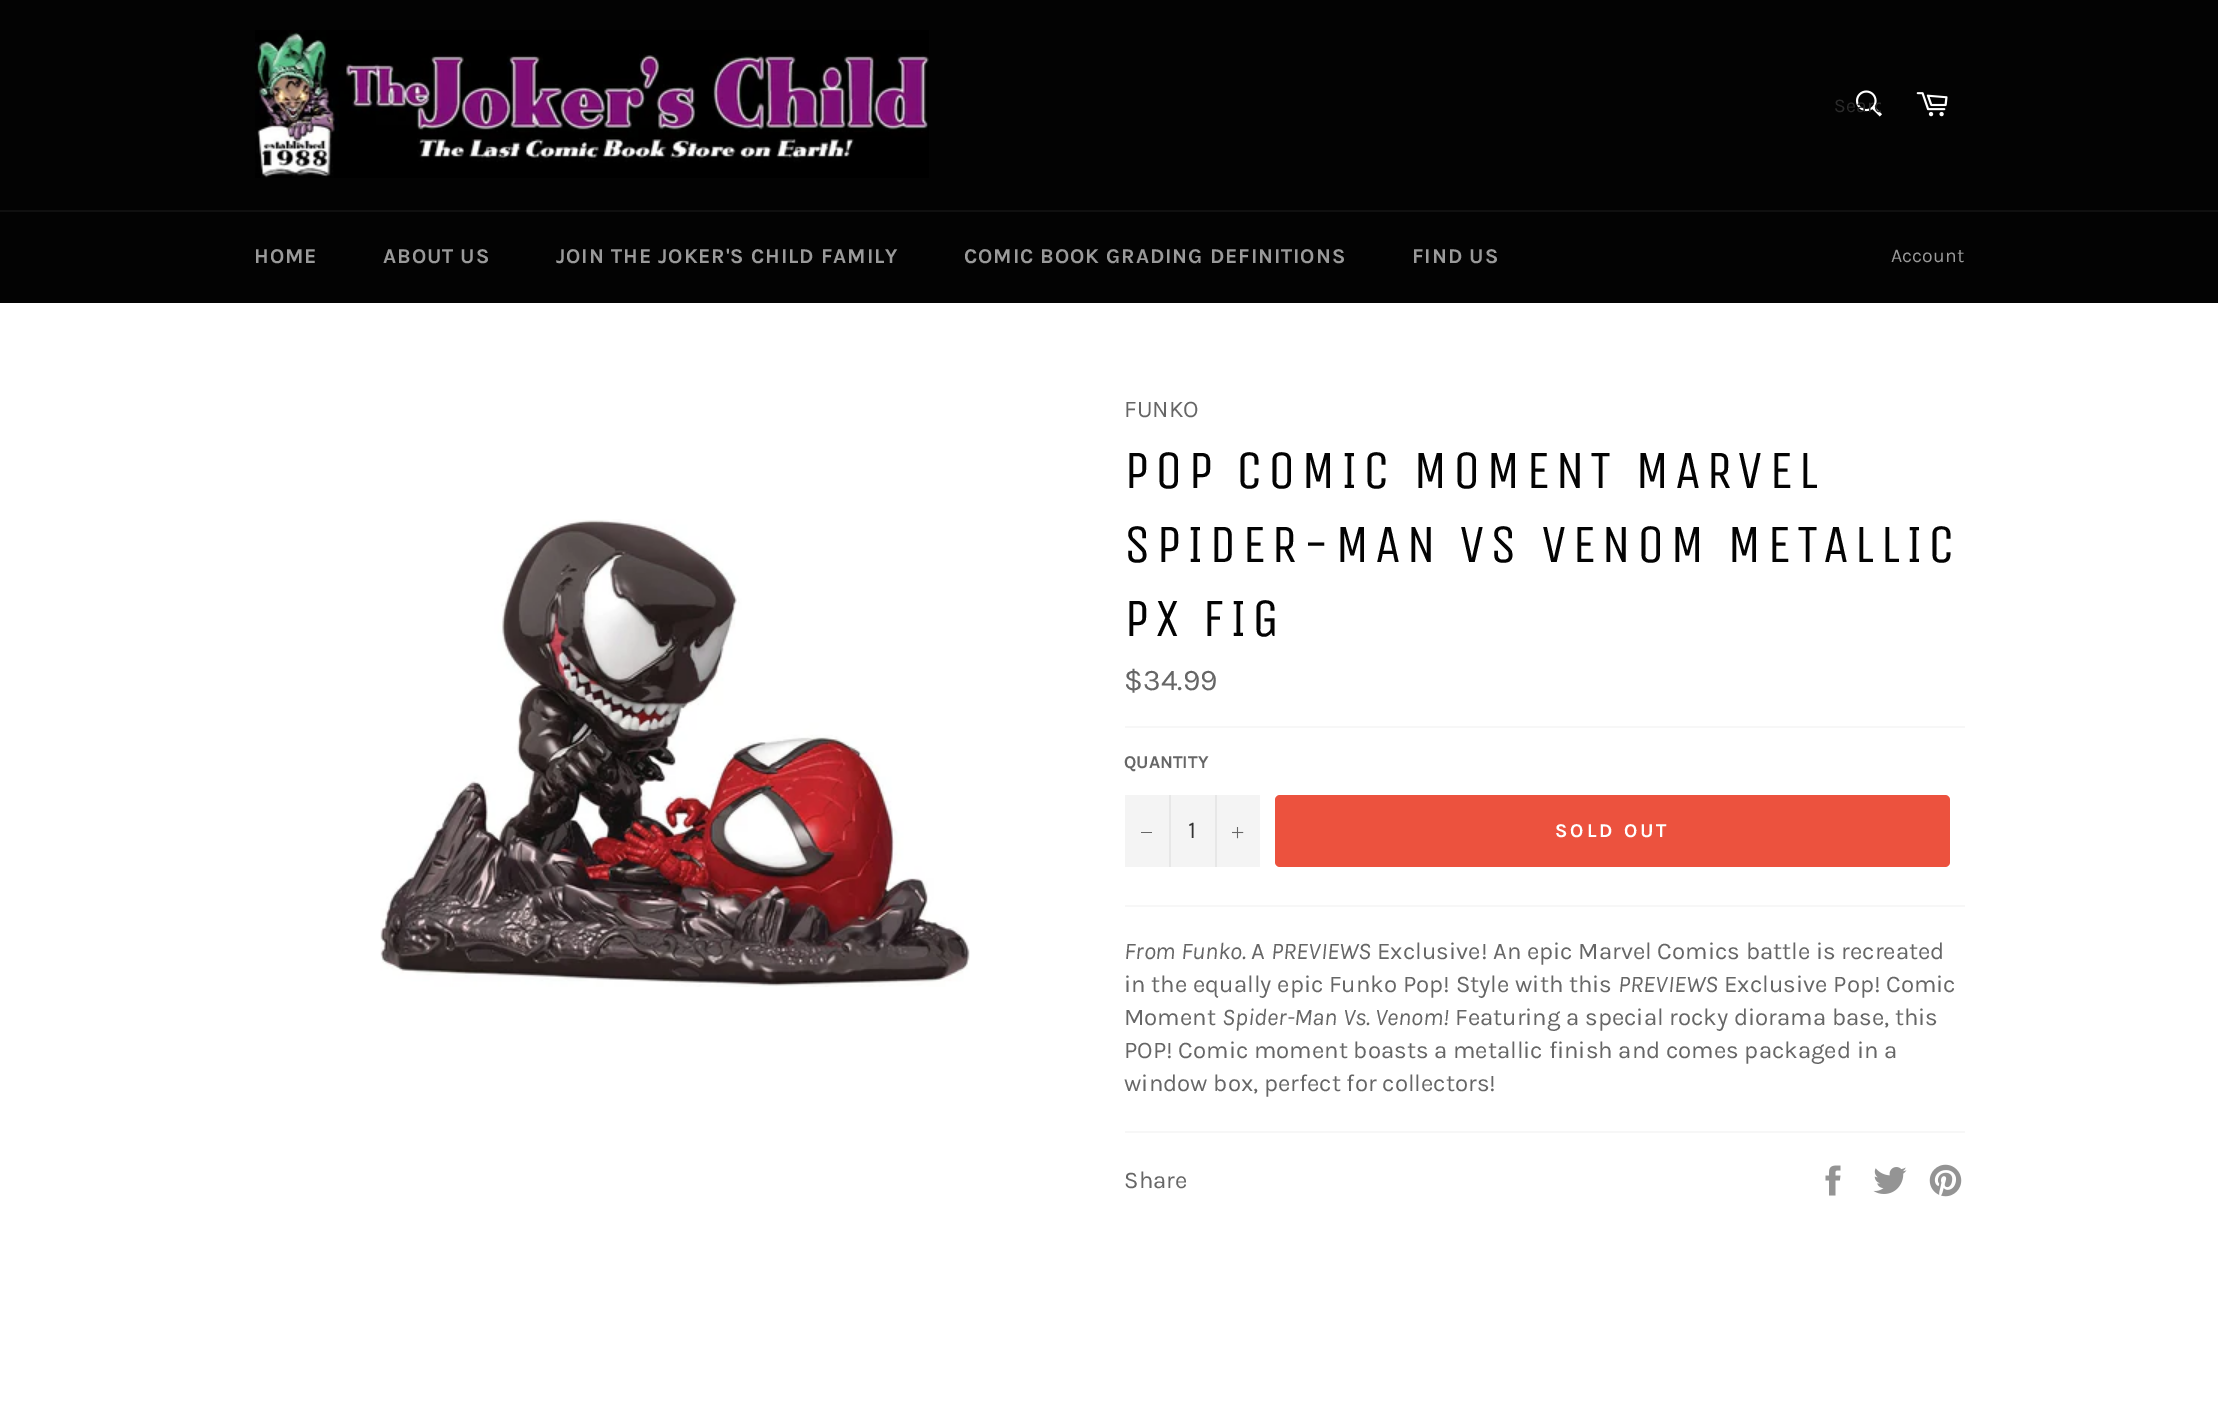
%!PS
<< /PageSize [2218 1415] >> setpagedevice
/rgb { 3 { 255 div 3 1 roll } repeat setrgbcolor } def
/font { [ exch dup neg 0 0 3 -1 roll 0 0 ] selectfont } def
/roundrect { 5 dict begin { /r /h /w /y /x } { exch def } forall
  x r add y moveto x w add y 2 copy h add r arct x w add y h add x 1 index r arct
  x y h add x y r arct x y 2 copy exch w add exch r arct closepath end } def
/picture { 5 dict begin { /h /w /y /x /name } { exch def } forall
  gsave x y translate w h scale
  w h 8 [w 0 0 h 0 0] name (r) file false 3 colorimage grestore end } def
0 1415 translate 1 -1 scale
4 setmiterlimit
3 3 3 rgb
0 0 2218 1415 rectfill
(img/1.rgb) 255 30 674 148 picture
(img/2.rgb) 1855 90 27 27 picture
(img/3.rgb) 1916 92 32 25 picture
16 16 16 rgb
0 210 2218 2 rectfill
255 255 255 rgb
0 303 2218 1112 rectfill
(img/4.rgb) 380 519 590 468 picture
[
  [1125 726 840 2 247 247 247]
  [1125 795 135 72 244 244 244]
  [1169 795 2 72 231 231 231]
  [1141 832 11 1 102 102 102]
  [1215 795 2 72 231 231 231]
] { aload pop rgb rectfill } forall
(img/5.rgb) 1232 827 12 12 picture
236 82 62 rgb
1275 795 675 72 5 roundrect fill
247 247 247 rgb
1125 905 840 2 rectfill
1125 1131 840 2 rectfill
(img/6.rgb) 1825 1165 16 31 picture
(img/7.rgb) 1873 1167 34 27 picture
(img/8.rgb) 1929 1164 33 33 picture
gsave
1833 95 48 22 rectclip
/Karla-Regular 19.5 font
43 43 43 rgb
1834 112 moveto (Searc) show
grestore
/Karla-Bold 21 font
154 154 154 rgb
254 263 moveto 0.9 0 (HOME) ashow
383 263 moveto 0.9 0 (ABOUT US) ashow
556 263 moveto 0.9 0 (JOIN THE JOKER'S CHILD FAMILY) ashow
964 263 moveto 0.9 0 (COMIC BOOK GRADING DEFINITIONS) ashow
1412 263 moveto 0.9 0 (FIND US) ashow
/Karla-Regular 19.5 font
1891 262 moveto (Account) show
/Karla-Regular 24 font
102 102 102 rgb
1124 417 moveto (FUNKO) show
/UnicaOne-Regular 54 font
3 3 3 rgb
1124 488 moveto 5.4 0 (POP COMIC MOMENT MARVEL) ashow
1124 562 moveto 5.4 0 (SPIDER-MAN VS VENOM METALLIC) ashow
1124 636 moveto 5.4 0 (PX FIG) ashow
/Karla-Regular 30 font
102 102 102 rgb
1124 690 moveto ($34.99) show
/Karla-Bold 18 font
1124 768 moveto (QUANTITY) show
/Karla-Regular 24 font
51 51 51 rgb
1188 838 moveto (1) show
/Karla-Bold 19.5 font
255 255 255 rgb
1555 837 moveto 3 0 (SOLD OUT) ashow
/Karla-Italic 24 font
102 102 102 rgb
1124 959 moveto (From Funko.) show
/Karla-Regular 24 font
1251 959 moveto (A) show
/Karla-Italic 24 font
1271 959 moveto (PREVIEWS) show
/Karla-Regular 24 font
1377 959 moveto (Exclusive! An epic Marvel Comics battle is recreated) show
1124 992 moveto (in the equally epic Funko Pop! Style with this) show
/Karla-Italic 24 font
1618 992 moveto (PREVIEWS) show
/Karla-Regular 24 font
1724 992 moveto (Exclusive Pop! Comic) show
1124 1025 moveto (Moment) show
/Karla-Italic 24 font
1222 1025 moveto (Spider-Man Vs. Venom!) show
/Karla-Regular 24 font
[
  [(Featuring a special rocky diorama base, this) 1455 1025]
  [(POP! Comic moment boasts a metallic finish and comes packaged in a) 1124 1058]
  [(window box, perfect for collectors!) 1124 1091]
  [(Share) 1124 1188]
] { aload pop moveto show } forall
showpage
